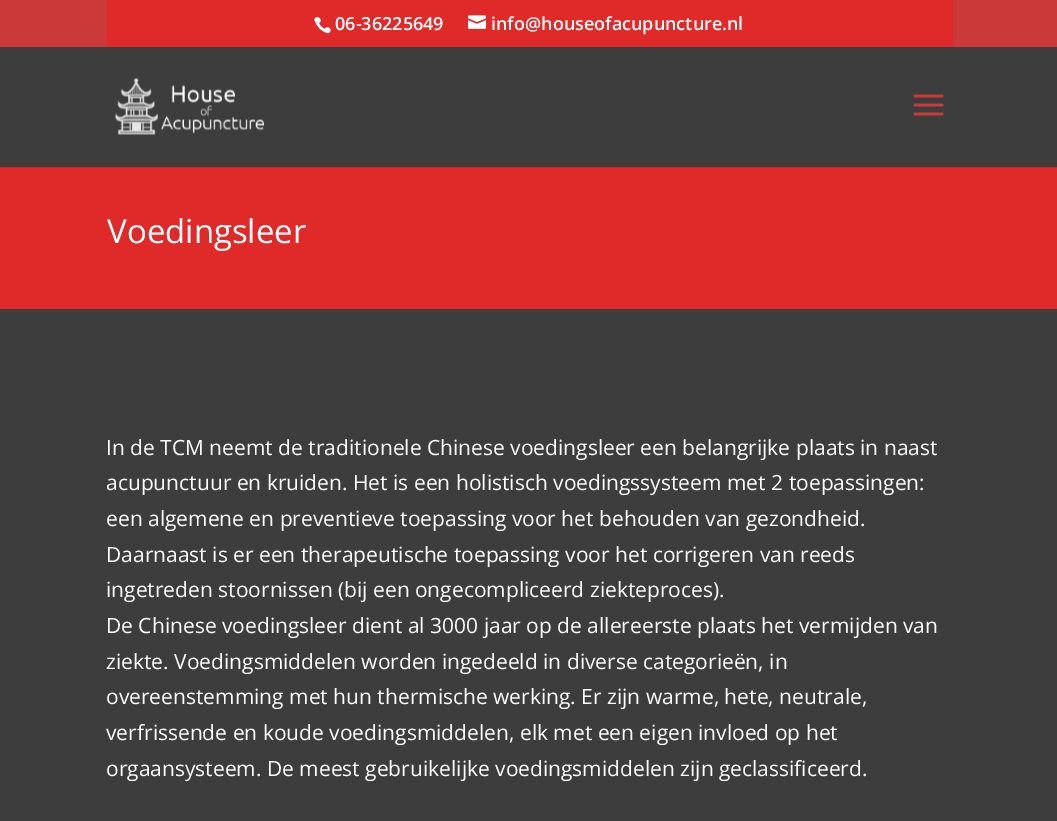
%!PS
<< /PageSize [1057 821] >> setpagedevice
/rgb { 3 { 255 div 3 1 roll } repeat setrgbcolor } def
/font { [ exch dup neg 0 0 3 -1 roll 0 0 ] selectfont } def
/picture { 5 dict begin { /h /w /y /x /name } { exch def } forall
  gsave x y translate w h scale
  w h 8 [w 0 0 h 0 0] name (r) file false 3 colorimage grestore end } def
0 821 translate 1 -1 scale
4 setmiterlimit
224 42 42 rgb
0 0 1057 821 rectfill
204 57 57 rgb
0 0 1057 47 rectfill
224 42 42 rgb
107 0 846 47 rectfill
(img/1.rgb) 314 16 17 18 picture
(img/2.rgb) 468 15 18 14 picture
202 38 38 rgb
0 166 moveto 0 168 lineto 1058 168 lineto 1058 48 lineto 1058 166 lineto closepath fill
61 61 61 rgb
0 47 1057 120 rectfill
(img/3.rgb) 115 78 149 57 picture
(img/4.rgb) 913 94 31 22 picture
0 309 1057 512 rectfill
/OpenSans-SemiBold 18 font
255 255 255 rgb
335 30 moveto (06-36225649) show
491 30 moveto (info@houseofacupuncture.nl) show
/OpenSans-Regular 33 font
107 243 moveto (Voedingsleer) show
/OpenSans-Regular 21 font
[
  [(In de TCM neemt de traditionele Chinese voedingsleer een belangrijke plaats in naast) 106 455]
  [(acupunctuur en kruiden. Het is een holistisch voedingssysteem met 2 toepassingen:) 106 490]
  [(een algemene en preventieve toepassing voor het behouden van gezondheid.) 106 526]
  [(Daarnaast is er een therapeutische toepassing voor het corrigeren van reeds) 106 562]
  [(ingetreden stoornissen \(bij een ongecompliceerd ziekteproces\).) 106 597]
  [(De Chinese voedingsleer dient al 3000 jaar op de allereerste plaats het vermijden van) 106 633]
  [(ziekte. Voedingsmiddelen worden ingedeeld in diverse categorieën, in) 106 669]
  [(overeenstemming met hun thermische werking. Er zijn warme, hete, neutrale,) 106 704]
  [(verfrissende en koude voedingsmiddelen, elk met een eigen invloed op het) 106 740]
  [(orgaansysteem. De meest gebruikelijke voedingsmiddelen zijn geclassificeerd.) 106 776]
] { aload pop moveto show } forall
showpage
